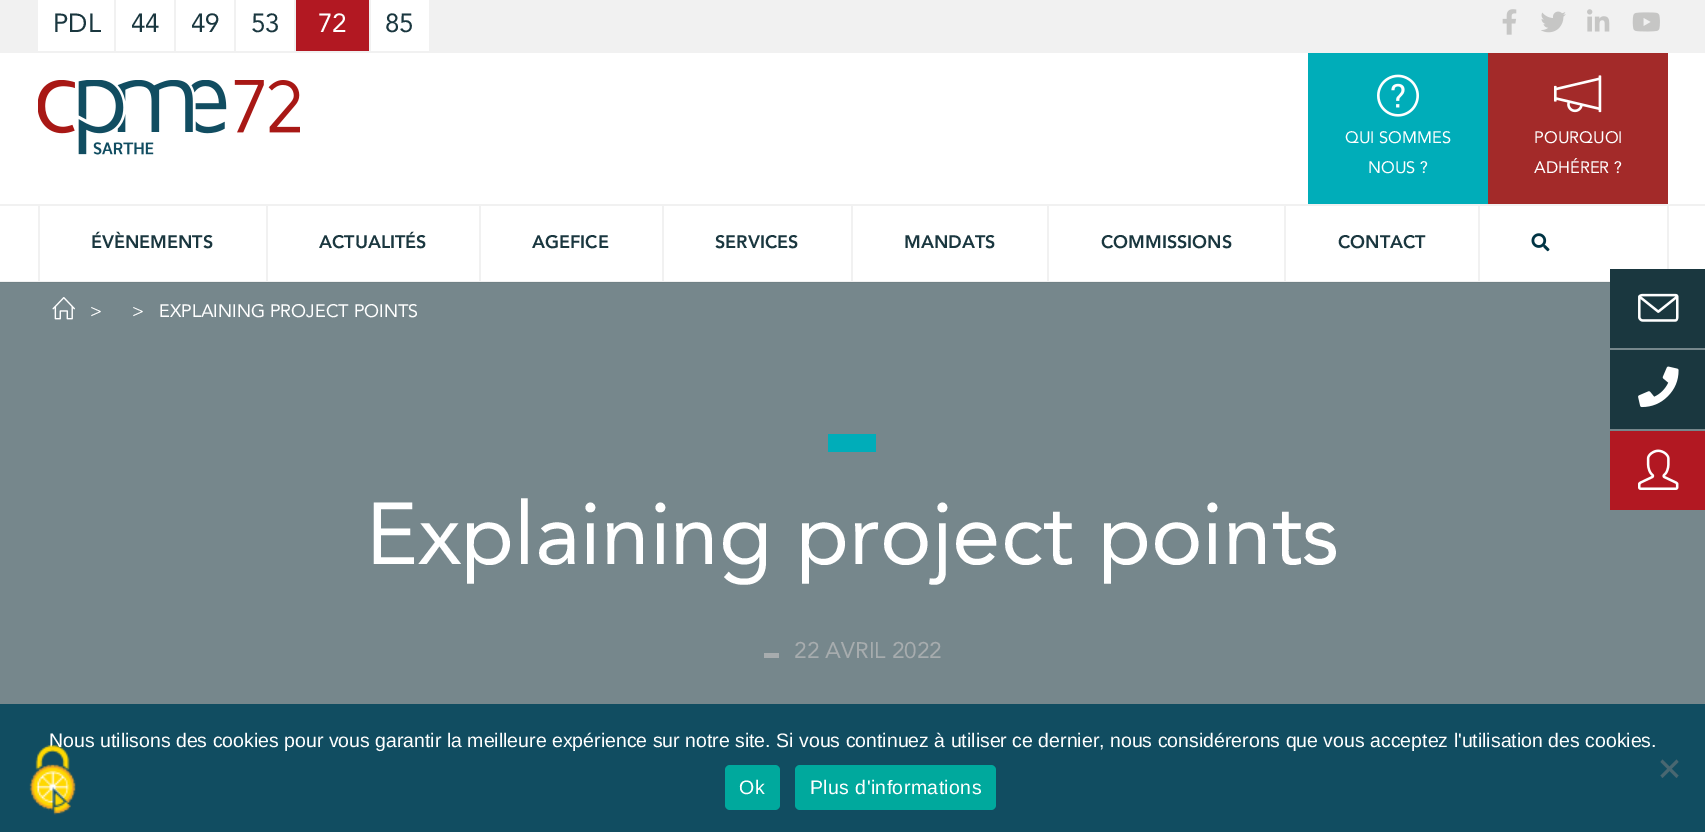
%!PS
<< /PageSize [1705 832] >> setpagedevice
/rgb { 3 { 255 div 3 1 roll } repeat setrgbcolor } def
/font { [ exch dup neg 0 0 3 -1 roll 0 0 ] selectfont } def
/roundrect { 5 dict begin { /r /h /w /y /x } { exch def } forall
  x r add y moveto x w add y 2 copy h add r arct x w add y h add x 1 index r arct
  x y h add x y r arct x y 2 copy exch w add exch r arct closepath end } def
/picture { 5 dict begin { /h /w /y /x /name } { exch def } forall
  gsave x y translate w h scale
  w h 8 [w 0 0 h 0 0] name (r) file false 3 colorimage grestore end } def
0 832 translate 1 -1 scale
4 setmiterlimit
255 255 255 rgb
0 0 1705 832 rectfill
[
  [0 283 1705 421 118 135 140]
  [0 0 1705 53 241 241 241]
  [38 0 76 51 255 255 255]
  [116 0 58 51 255 255 255]
  [176 0 58 51 255 255 255]
  [236 0 58 51 255 255 255]
  [296 0 73 51 178 24 34]
  [371 0 58 51 255 255 255]
] { aload pop rgb rectfill } forall
(img/1.rgb) 1502 9 15 26 picture
(img/2.rgb) 1541 11 25 22 picture
(img/3.rgb) 1587 9 23 23 picture
(img/4.rgb) 1632 12 28 20 picture
(img/5.rgb) 38 80 262 75 picture
0 173 185 rgb
1308 53 180 151 rectfill
(img/6.rgb) 1377 74 42 43 picture
163 42 41 rgb
1488 53 180 151 rectfill
(img/7.rgb) 1554 75 48 38 picture
[
  [0 204 1705 2 241 241 241]
  [0 281 1610 1 241 241 241]
  [0 282 1610 1 112 129 134]
  [1667 206 2 63 241 241 241]
  [38 206 2 75 241 241 241]
  [266 206 2 75 241 241 241]
  [479 206 2 75 241 241 241]
  [662 206 2 75 241 241 241]
  [851 206 2 75 241 241 241]
  [1047 206 2 75 241 241 241]
  [1284 206 2 75 241 241 241]
  [1478 206 2 75 241 241 241]
] { aload pop rgb rectfill } forall
(img/8.rgb) 1531 233 19 19 picture
26 55 63 rgb
1610 269 95 79 rectfill
(img/9.rgb) 1638 293 41 29 picture
1610 350 95 79 rectfill
(img/10.rgb) 1638 366 41 42 picture
178 24 34 rgb
1610 431 95 79 rectfill
(img/11.rgb) 1638 449 41 41 picture
(img/12.rgb) 52 297 23 23 picture
[
  [828 434 48 18 0 173 185]
  [764 653 15 5 167 172 174]
  [0 704 1705 128 17 77 97]
] { aload pop rgb rectfill } forall
73 103 113 rgb
1676.5 759.5 moveto 1678.5 762 lineto 1662.5 778 lineto 1660.5 775.5 lineto closepath fill
1660.5 762 moveto 1662.5 759.5 lineto 1678.5 775.5 lineto 1676.5 778 lineto closepath fill
0 169 157 rgb
725 765 55 45 5 roundrect fill
795 765 201 45 5 roundrect fill
/Avenir-Regular 26 font
26 55 63 rgb
[
  [(PDL) 53 32]
  [(44) 131 32]
  [(49) 191 32]
  [(53) 251 32]
] { aload pop moveto show } forall
255 255 255 rgb
318 32 moveto (72) show
26 55 63 rgb
385 32 moveto (85) show
/Avenir-Regular 16.5 font
255 255 255 rgb
[
  [(QUI SOMMES) 1345 143]
  [(NOUS ?) 1368 173]
  [(POURQUOI) 1534 143]
  [(ADHÉRER ?) 1534 173]
] { aload pop moveto show } forall
/Avenir-Black 18 font
26 55 63 rgb
[
  [(ÉVÈNEMENTS) 91 248]
  [(ACTUALITÉS) 319 248]
  [(AGEFICE) 532 248]
  [(SERVICES) 715 248]
  [(MANDATS) 904 248]
  [(COMMISSIONS) 1101 248]
  [(CONTACT) 1338 248]
] { aload pop moveto show } forall
/Avenir-Regular 18 font
255 255 255 rgb
[
  [(>) 90 317]
  [(>) 132 317]
  [(EXPLAINING PROJECT POINTS) 159 317]
] { aload pop moveto show } forall
/Avenir-Regular 87 font
366 564 moveto (Explaining project points) show
/Avenir-Regular 22.5 font
167 172 174 rgb
794 658 moveto (22 AVRIL 2022) show
/LiberationSans-Regular 19.5 font
255 255 255 rgb
49 747 moveto (Nous utilisons des cookies pour vous garantir la meilleure expérience sur notre site. Si vous continuez à utiliser ce dernier, nous considérerons que vous acceptez l'utilisation des cookies.) show
739 794 moveto 0.4 0 (Ok) ashow
810 794 moveto 0.4 0 (Plus d'informations) ashow
(img/13.rgb) 29 745 47 70 picture
showpage
